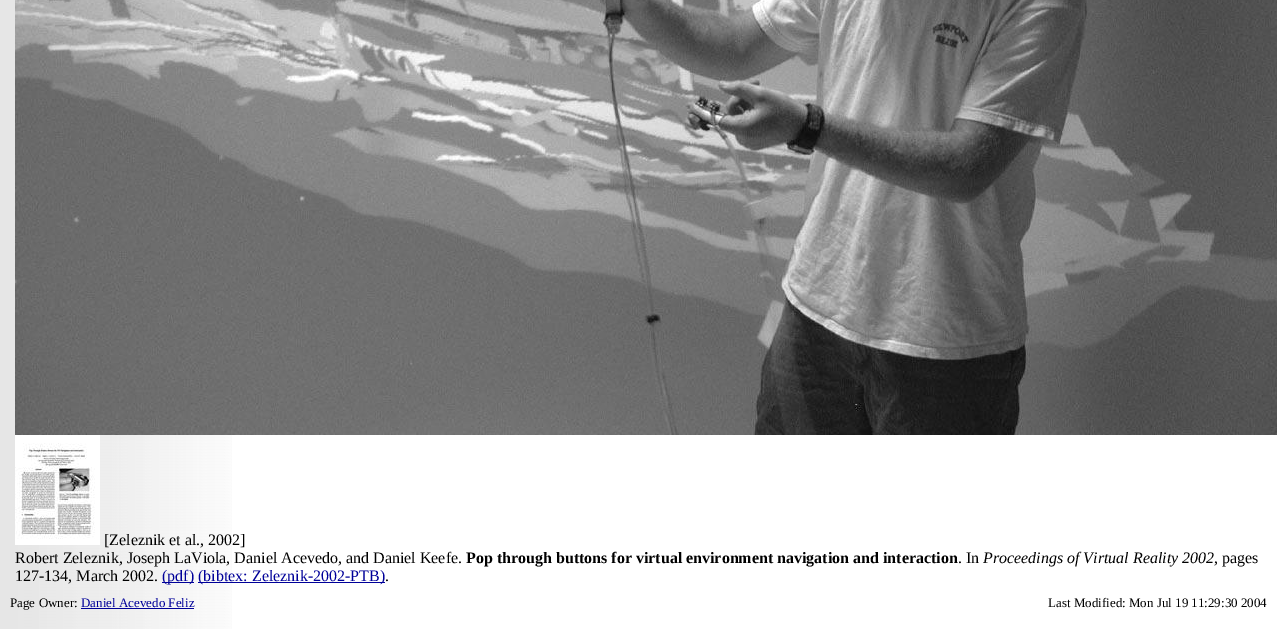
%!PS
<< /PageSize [1277 629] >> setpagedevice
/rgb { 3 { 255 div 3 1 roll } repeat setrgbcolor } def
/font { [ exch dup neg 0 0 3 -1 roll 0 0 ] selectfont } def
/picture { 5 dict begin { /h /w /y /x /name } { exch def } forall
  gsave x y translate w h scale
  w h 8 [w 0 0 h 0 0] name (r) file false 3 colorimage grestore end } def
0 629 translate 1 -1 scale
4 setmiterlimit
255 255 255 rgb
0 0 1277 629 rectfill
(img/1.rgb) 0 0 232 629 picture
(img/2.rgb) 15 0 1262 435 picture
(img/3.rgb) 15 435 85 110 picture
[
  [162 582 32 1 0 0 153]
  [198 582 187 1 0 0 153]
  [81 608 113 1 0 0 153]
] { aload pop rgb rectfill } forall
/LiberationSerif-Regular 16 font
0 0 0 rgb
104 545 moveto ([Zeleznik et al., 2002]) show
15 563 moveto (Robert Zeleznik, Joseph LaViola, Daniel Acevedo, and Daniel Keefe.) show
/LiberationSerif-Bold 16 font
466 563 moveto (Pop through buttons for virtual environment navigation and interaction) show
/LiberationSerif-Regular 16 font
958 563 moveto (. In) show
/LiberationSerif-Italic 16 font
983 563 moveto (Proceedings of Virtual Reality 2002) show
/LiberationSerif-Regular 16 font
1214 563 moveto (, pages) show
15 581 moveto (127-134, March 2002.) show
0 0 153 rgb
162 581 moveto (\(pdf\)) show
198 581 moveto (\(bibtex: Zeleznik-2002-PTB\)) show
0 0 0 rgb
385 581 moveto (.) show
/LiberationSerif-Regular 13 font
10 607 moveto (Page Owner:) show
0 0 153 rgb
81 607 moveto (Daniel Acevedo Feliz) show
0 0 0 rgb
1048 607 moveto (Last Modified: Mon Jul 19 11:29:30 2004) show
showpage
